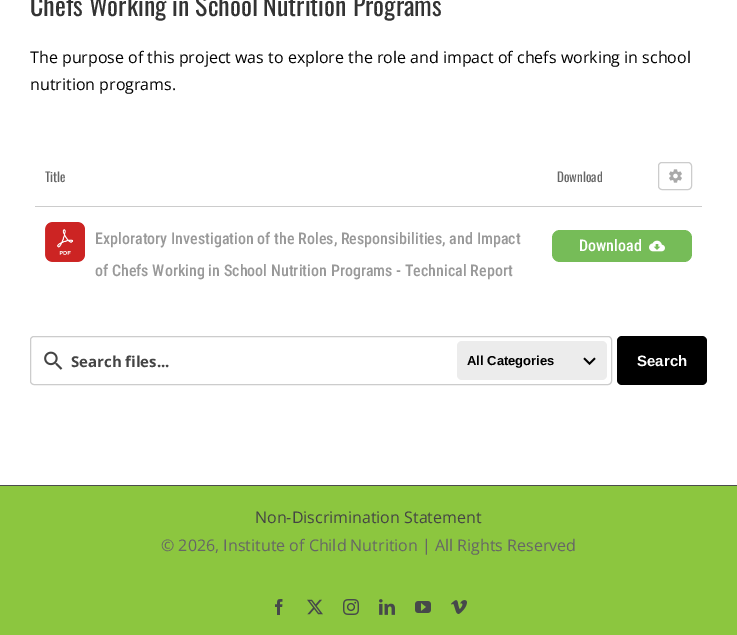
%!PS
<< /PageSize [737 635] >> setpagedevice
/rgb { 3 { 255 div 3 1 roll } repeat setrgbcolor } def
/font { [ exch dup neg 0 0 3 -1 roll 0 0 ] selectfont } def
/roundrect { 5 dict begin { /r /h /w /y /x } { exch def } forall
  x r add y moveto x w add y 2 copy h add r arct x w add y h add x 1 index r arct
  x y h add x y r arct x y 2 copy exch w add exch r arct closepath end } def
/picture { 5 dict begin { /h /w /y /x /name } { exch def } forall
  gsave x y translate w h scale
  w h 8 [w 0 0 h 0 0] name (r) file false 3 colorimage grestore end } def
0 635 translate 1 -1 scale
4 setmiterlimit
255 255 255 rgb
0 0 737 635 rectfill
204 204 204 rgb
35 206 667 1 rectfill
(img/1.rgb) 45 222 40 40 picture
118 188 88 rgb
552 230 140 32 8 roundrect fill
(img/2.rgb) 649 240 16 12 picture
204 204 204 rgb
658.5 162.5 33 27 3.5 roundrect stroke
(img/3.rgb) 669 169 13 14 picture
30.5 336.5 581 48 3.5 roundrect stroke
(img/4.rgb) 44 351 19 19 picture
236 236 236 rgb
457 341 150 39 5 roundrect fill
(img/5.rgb) 583 357 13 9 picture
0 0 0 rgb
617 336 90 49 5 roundrect fill
140 198 63 rgb
0 486 737 149 rectfill
75 76 77 rgb
0 485 737 1 rectfill
(img/6.rgb) 275 599 8 16 picture
(img/7.rgb) 307 599 16 16 picture
(img/8.rgb) 343 599 16 16 picture
(img/9.rgb) 379 599 16 16 picture
(img/10.rgb) 415 601 16 12 picture
(img/11.rgb) 451 600 16 14 picture
/Oswald-Regular 25.8 font
51 51 51 rgb
30 16 moveto (Chefs Working in School Nutrition Programs) show
/OpenSans-Regular 16 font
0 0 0 rgb
30 63 moveto (The purpose of this project was to explore the role and impact of chefs working in school) show
30 90 moveto (nutrition programs.) show
/Oswald-Regular 13 font
102 102 102 rgb
45 182 moveto (Title) show
557 182 moveto (Download) show
/RobotoCondensed-Medium 16 font
153 153 153 rgb
95 244 moveto (Exploratory Investigation of the Roles, Responsibilities, and Impact) show
95 276 moveto (of Chefs Working in School Nutrition Programs - Technical Report) show
255 255 255 rgb
579 251 moveto (Download) show
/OpenSans-Bold 15 font
68 68 68 rgb
71 367 moveto (Search files...) show
/LiberationSans-Bold 13 font
0 0 0 rgb
467 365 moveto (All Categories) show
/LiberationSans-Bold 15 font
255 255 255 rgb
637 366 moveto (Search) show
/OpenSans-Regular 16 font
68 68 68 rgb
255 523 moveto (Non-Discrimination Statement) show
102 102 102 rgb
161 551 moveto (© 2026, Institute of Child Nutrition | All Rights Reserved) show
showpage
